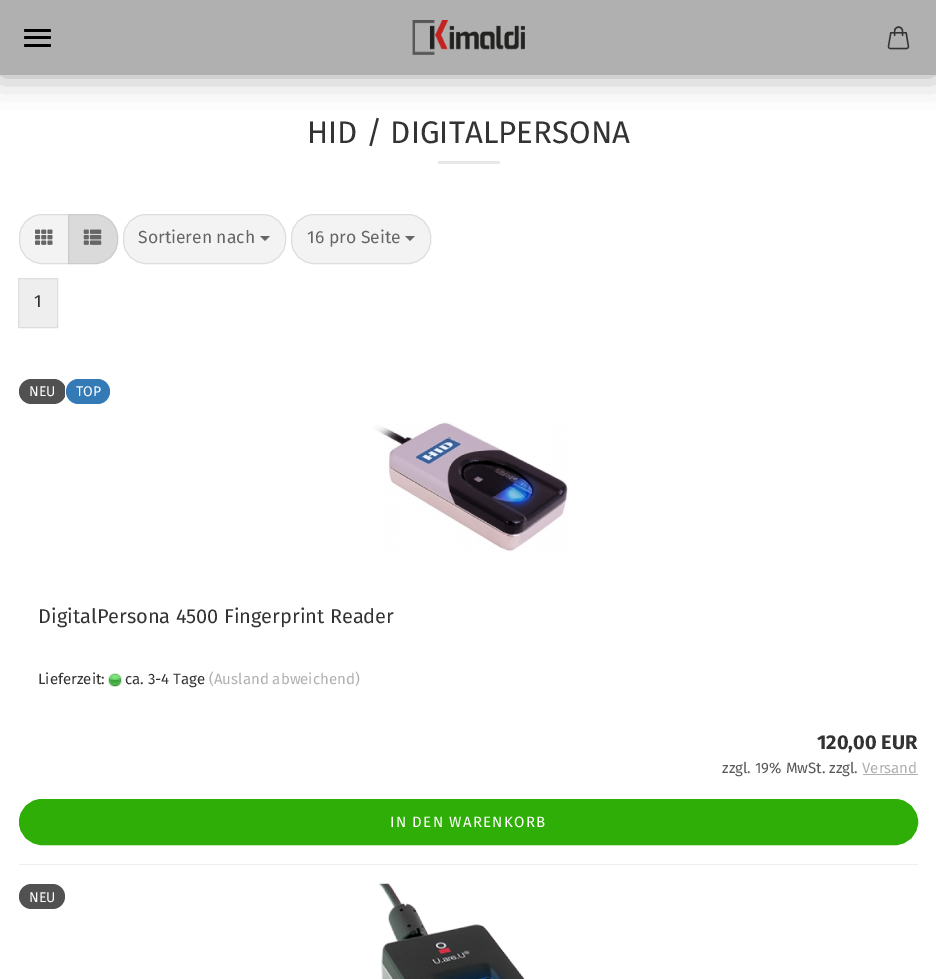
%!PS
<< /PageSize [936 979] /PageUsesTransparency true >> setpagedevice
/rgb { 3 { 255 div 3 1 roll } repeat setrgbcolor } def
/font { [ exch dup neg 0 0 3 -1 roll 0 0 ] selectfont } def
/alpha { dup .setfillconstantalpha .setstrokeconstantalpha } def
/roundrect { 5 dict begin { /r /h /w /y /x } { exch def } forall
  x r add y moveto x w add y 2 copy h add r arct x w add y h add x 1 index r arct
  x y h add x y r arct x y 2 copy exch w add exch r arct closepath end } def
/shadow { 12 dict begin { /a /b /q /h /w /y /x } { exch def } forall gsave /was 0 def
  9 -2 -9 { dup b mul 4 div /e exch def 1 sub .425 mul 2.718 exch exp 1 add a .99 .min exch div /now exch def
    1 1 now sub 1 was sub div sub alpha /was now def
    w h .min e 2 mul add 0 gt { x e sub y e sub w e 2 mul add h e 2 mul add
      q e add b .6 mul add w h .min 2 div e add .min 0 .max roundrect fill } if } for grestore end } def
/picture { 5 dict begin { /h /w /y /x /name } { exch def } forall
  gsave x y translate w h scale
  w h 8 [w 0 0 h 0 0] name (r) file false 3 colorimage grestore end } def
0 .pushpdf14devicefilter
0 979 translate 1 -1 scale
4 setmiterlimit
255 255 255 rgb
0 0 936 979 rectfill
0 0 0 rgb
0 0 936 75 0 15.5 0.35 shadow
177 176 176 rgb
0 0 936 75 rectfill
(img/1.rgb) 412 20 113 35 picture
(img/2.rgb) 887 26 23 24 picture
0 0 0 rgb
24 36 27 3 1.5 roundrect fill
24 29 27 3 1.5 roundrect fill
24 44 27 3 1.5 roundrect fill
231 231 231 rgb
438 161 62 3 rectfill
243 243 243 rgb
42 214.5 moveto 68.5 214.5 lineto 68.5 263.5 lineto 42 263.5 lineto 29.5 263.5 19.5 253.5 19.5 241 curveto 19.5 237 lineto 19.5 224.5 29.5 214.5 42 214.5 curveto closepath gsave fill grestore
221 221 221 rgb
stroke
(img/3.rgb) 35 229 18 16 picture
218 218 218 rgb
68.5 214.5 moveto 95 214.5 lineto 107.5 214.5 117.5 224.5 117.5 237 curveto 117.5 241 lineto 117.5 253.5 107.5 263.5 95 263.5 curveto 68.5 263.5 lineto closepath gsave fill grestore
204 204 204 rgb
stroke
(img/4.rgb) 83 229 19 16 picture
243 243 243 rgb
123.5 214.5 162 49 22.5 roundrect gsave fill grestore
221 221 221 rgb
stroke
102 102 102 rgb
260 236 moveto 270 236 lineto 265 241 lineto closepath fill
243 243 243 rgb
291.5 214.5 139 49 22.5 roundrect gsave fill grestore
221 221 221 rgb
stroke
102 102 102 rgb
405 236 moveto 415 236 lineto 410 241 lineto closepath fill
238 238 238 rgb
18.5 278.5 moveto 57.5 278.5 lineto 57.5 327.5 lineto 18.5 327.5 lineto closepath gsave fill grestore
221 221 221 rgb
stroke
238 238 238 rgb
19 864 899 1 rectfill
81 81 81 rgb
19 379 47 25 12.5 roundrect fill
255 255 255 rgb
65 385 1 13 rectfill
51 122 183 rgb
66 379 44 25 12.5 roundrect fill
(img/5.rgb) 373 422 195 130 picture
(img/6.rgb) 108 673 14 14 picture
177 176 176 rgb
863 774 55 1 rectfill
46 174 6 rgb
19.5 799.5 898 45 22.5 roundrect gsave fill grestore
stroke
81 81 81 rgb
19 884 46 25 12.5 roundrect fill
(img/7.rgb) 379 883 146 96 picture
/FiraSans-Regular 31.25 font
51 51 51 rgb
307 143 moveto (HID / DIGITALPERSONA) show
/FiraSans-Regular 17.5 font
102 102 102 rgb
138 243 moveto (Sortieren nach) show
307 243 moveto (16 pro Seite) show
51 51 51 rgb
34 307 moveto (1) show
/FiraSans-Regular 14 font
255 255 255 rgb
29 396 moveto (NEU) show
76 396 moveto (TOP) show
/FiraSans-Regular 20 font
51 51 51 rgb
38 623 moveto (DigitalPersona 4500 Fingerprint Reader) show
/FiraSans-Regular 15 font
38 684 moveto (Lieferzeit:) show
125 684 moveto (ca. 3-4 Tage) show
177 176 176 rgb
209 684 moveto (\(Ausland abweichend\)) show
/FiraSans-Bold 20 font
51 51 51 rgb
817 749 moveto (120,00 EUR) show
/FiraSans-Regular 15 font
89 89 89 rgb
722 773 moveto (zzgl. 19% MwSt. zzgl.) show
177 176 176 rgb
862 773 moveto (Versand) show
255 255 255 rgb
390 827 moveto 1.25 0 (IN DEN WARENKORB) ashow
/FiraSans-Regular 14 font
29 902 moveto (NEU) show
.poppdf14devicefilter showpage
